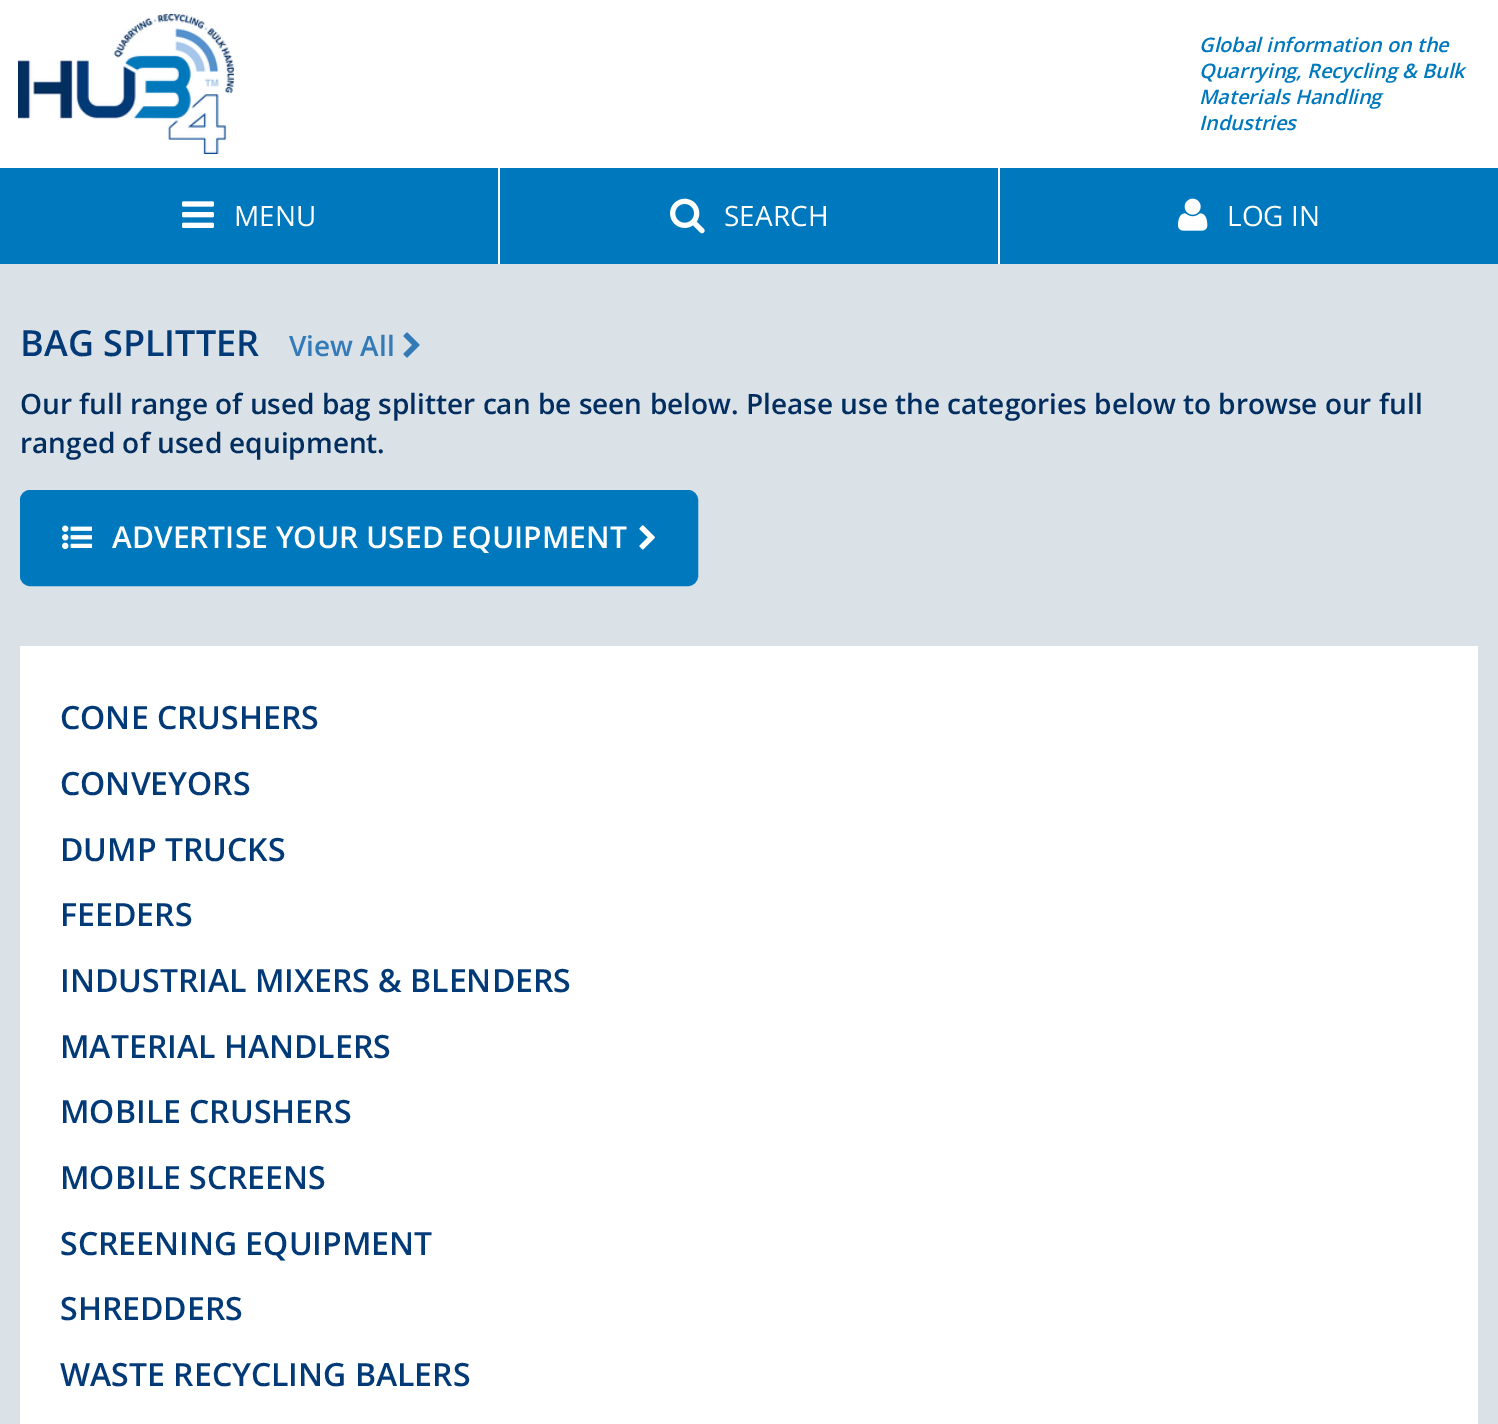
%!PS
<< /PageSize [1498 1424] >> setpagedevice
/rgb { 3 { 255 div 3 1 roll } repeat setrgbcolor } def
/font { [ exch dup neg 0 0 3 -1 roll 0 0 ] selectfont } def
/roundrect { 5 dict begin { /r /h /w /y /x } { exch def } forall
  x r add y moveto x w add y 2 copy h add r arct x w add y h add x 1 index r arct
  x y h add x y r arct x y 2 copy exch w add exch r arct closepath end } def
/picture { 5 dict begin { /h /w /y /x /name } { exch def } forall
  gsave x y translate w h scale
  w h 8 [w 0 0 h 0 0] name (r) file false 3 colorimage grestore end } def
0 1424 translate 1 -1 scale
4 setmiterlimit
255 255 255 rgb
0 0 1498 1424 rectfill
(img/1.rgb) 18 14 216 140 picture
0 120 190 rgb
0 168 1498 96 rectfill
(img/2.rgb) 182 201 32 27 picture
255 255 255 rgb
498 168 2 96 rectfill
(img/3.rgb) 670 198 35 36 picture
998 168 2 96 rectfill
(img/4.rgb) 1178 198 30 33 picture
218 226 232 rgb
0 264 1498 1160 rectfill
(img/5.rgb) 403 332 17 26 picture
0 120 190 rgb
21 491 676 94 9 roundrect gsave fill grestore
2 setlinewidth
stroke
(img/6.rgb) 62 525 30 25 picture
(img/7.rgb) 639 525 16 25 picture
255 255 255 rgb
20 646 1458 778 rectfill
/OpenSans-SemiBoldItalic 20 font
0 120 190 rgb
[
  [(Global information on the) 1199 52]
  [(Quarrying, Recycling & Bulk) 1199 78]
  [(Materials Handling) 1199 104]
  [(Industries) 1199 130]
] { aload pop moveto show } forall
/OpenSans-Regular 28 font
255 255 255 rgb
[
  [(MENU) 234 226]
  [(SEARCH) 724 226]
  [(LOG IN) 1227 226]
] { aload pop moveto show } forall
/OpenSans-SemiBold 36 font
2 58 120 rgb
20 356 moveto (BAG SPLITTER) show
/OpenSans-SemiBold 28 font
51 122 183 rgb
289 356 moveto (View All) show
2 46 95 rgb
20 414 moveto (Our full range of used bag splitter can be seen below. Please use the categories below to browse our full) show
20 453 moveto (ranged of used equipment.) show
/OpenSans-SemiBold 30 font
255 255 255 rgb
112 548 moveto (ADVERTISE YOUR USED EQUIPMENT) show
/OpenSans-SemiBold 32 font
2 58 120 rgb
[
  [(CONE CRUSHERS) 60 729]
  [(CONVEYORS) 60 795]
  [(DUMP TRUCKS) 60 861]
  [(FEEDERS) 60 926]
  [(INDUSTRIAL MIXERS & BLENDERS) 60 992]
  [(MATERIAL HANDLERS) 60 1058]
  [(MOBILE CRUSHERS) 60 1123]
  [(MOBILE SCREENS) 60 1189]
  [(SCREENING EQUIPMENT) 60 1255]
  [(SHREDDERS) 60 1320]
  [(WASTE RECYCLING BALERS) 60 1386]
] { aload pop moveto show } forall
showpage
